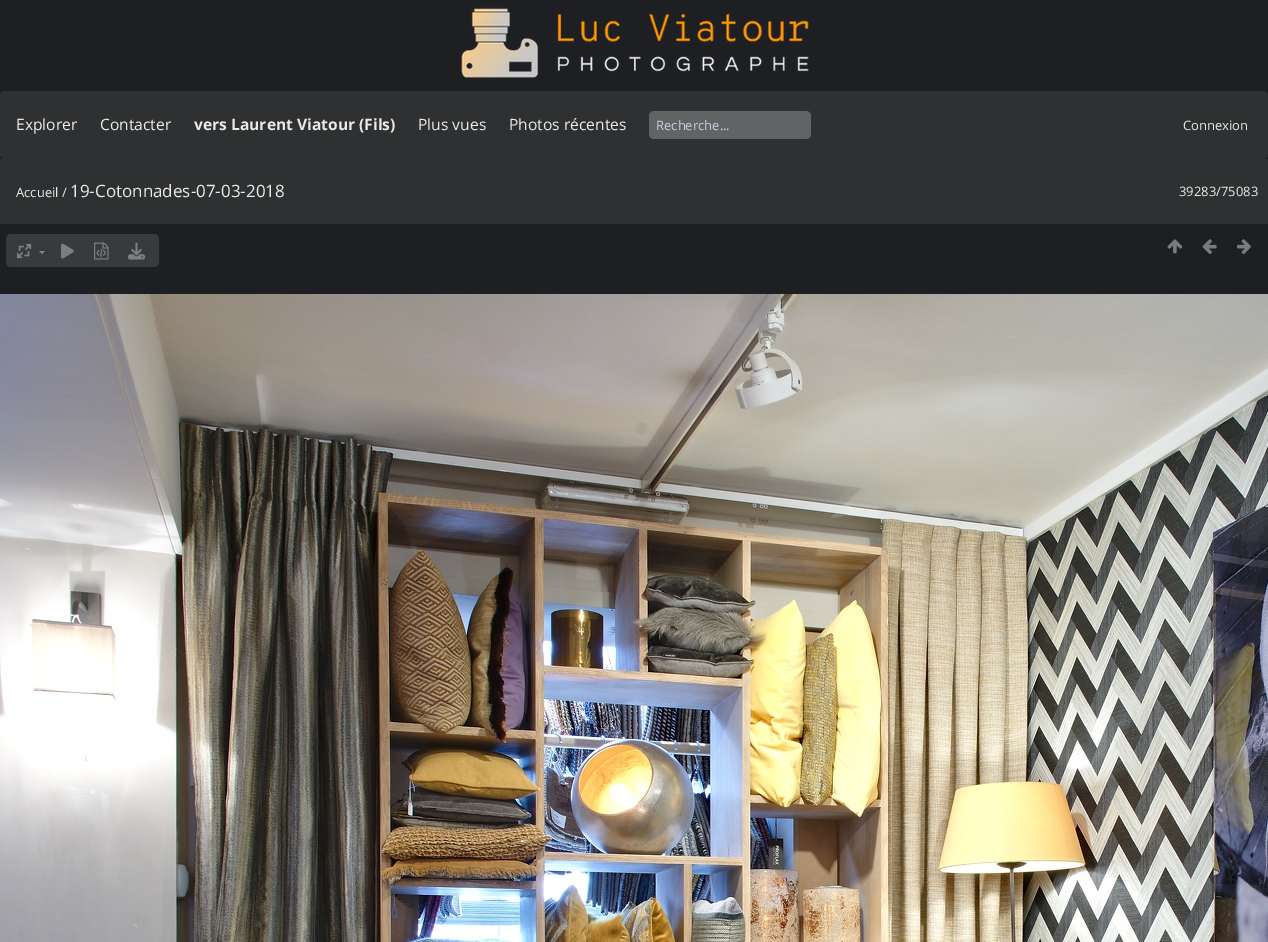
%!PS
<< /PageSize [1268 942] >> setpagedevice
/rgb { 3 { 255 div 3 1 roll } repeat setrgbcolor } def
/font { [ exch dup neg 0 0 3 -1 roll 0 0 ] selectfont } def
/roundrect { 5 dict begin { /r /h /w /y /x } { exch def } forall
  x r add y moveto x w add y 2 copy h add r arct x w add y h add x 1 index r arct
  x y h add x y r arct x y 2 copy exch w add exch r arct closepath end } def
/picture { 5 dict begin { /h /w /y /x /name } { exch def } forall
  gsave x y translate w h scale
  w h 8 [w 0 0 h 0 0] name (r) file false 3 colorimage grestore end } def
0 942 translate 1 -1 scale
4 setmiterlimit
30 31 35 rgb
0 0 1268 942 rectfill
(img/1.rgb) 461 6 348 72 picture
47 48 50 rgb
0 91 1268 68 5 roundrect fill
97 99 100 rgb
649 111 162 28 5 roundrect fill
47 48 50 rgb
0 159 1268 65 rectfill
57 58 61 rgb
6 234 153 33 5 roundrect fill
(img/2.rgb) 17 243 15 16 picture
132 133 136 rgb
39 251 moveto 45 251 lineto 42 254 lineto closepath fill
(img/3.rgb) 61 243 13 16 picture
(img/4.rgb) 94 242 15 18 picture
(img/5.rgb) 128 242 17 18 picture
(img/6.rgb) 1167 239 16 15 picture
(img/7.rgb) 1202 239 15 15 picture
(img/8.rgb) 1237 239 14 15 picture
(img/9.rgb) 0 294 1268 648 picture
/OpenSans-Regular 15.6 font
234 234 233 rgb
16 130 moveto (Explorer) show
100 130 moveto (Contacter) show
/OpenSans-Bold 15.6 font
194 130 moveto (vers Laurent Viatour \(Fils\)) show
/OpenSans-Regular 15.6 font
418 130 moveto (Plus vues) show
509 130 moveto (Photos récentes) show
/OpenSans-Regular 13 font
199 211 225 rgb
656 130 moveto (Recherche...) show
234 234 233 rgb
1183 130 moveto (Connexion) show
16 197 moveto (Accueil /) show
/OpenSans-Regular 17 font
70 197 moveto (19-Cotonnades-07-03-2018) show
/OpenSans-Regular 13 font
1179 196 moveto (39283/75083) show
showpage
